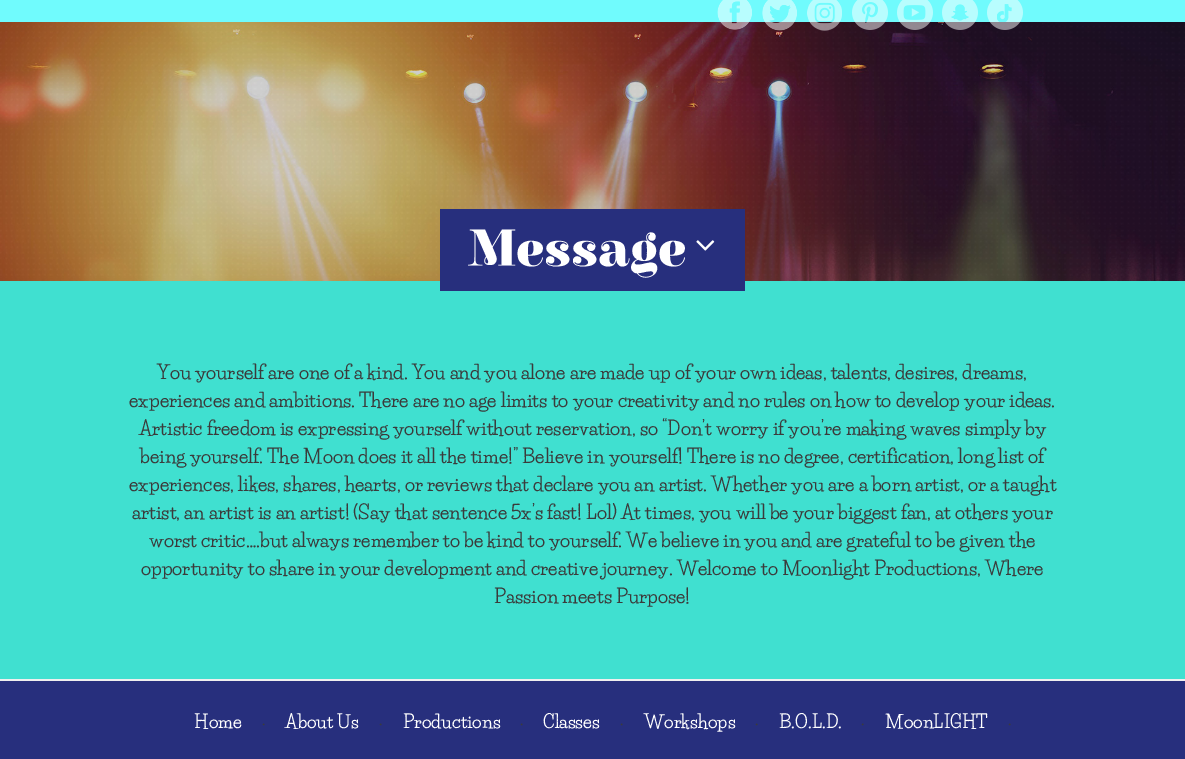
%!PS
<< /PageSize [1185 759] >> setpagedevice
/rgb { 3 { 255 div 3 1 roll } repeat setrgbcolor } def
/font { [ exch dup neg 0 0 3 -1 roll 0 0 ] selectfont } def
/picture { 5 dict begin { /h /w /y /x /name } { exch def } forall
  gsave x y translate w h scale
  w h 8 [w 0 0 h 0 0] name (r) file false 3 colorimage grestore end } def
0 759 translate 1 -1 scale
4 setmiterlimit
112 251 253 rgb
0 0 1185 759 rectfill
(img/8.rgb) 0 22 1185 259 picture
(img/9.rgb) 0 22 1185 259 picture
(img/1.rgb) 717 0 35 30 picture
(img/2.rgb) 762 0 35 31 picture
(img/3.rgb) 807 0 35 31 picture
(img/4.rgb) 852 0 36 30 picture
(img/5.rgb) 897 0 36 30 picture
(img/6.rgb) 942 0 36 30 picture
(img/7.rgb) 987 0 36 30 picture
64 224 208 rgb
0 281 1185 398 rectfill
39 47 125 rgb
440 209 305 82 rectfill
(img/10.rgb) 696 240 19 11 picture
0 681 1185 78 rectfill
239 239 239 rgb
0 679 1185 2 rectfill
/ElsieSwashCaps-Black 52 font
255 255 255 rgb
470 266 moveto (Message) show
/LifeSavers-Bold 19 font
59 59 59 rgb
[
  [(You yourself are one of a kind. You and you alone are made up of your own ideas, talents, desires, dreams,) 157 379]
  [(experiences and ambitions. There are no age limits to your creativity and no rules on how to develop your ideas.) 129 407]
  [(Artistic freedom is expressing yourself without reservation, so “Don’t worry if you’re making waves simply by) 139 435]
  [(being yourself. The Moon does it all the time!” Believe in yourself! There is no degree, certification, long list of) 140 463]
  [(experiences, likes, shares, hearts, or reviews that declare you an artist. Whether you are a born artist, or a taught) 129 491]
  [(artist, an artist is an artist! \(Say that sentence 5x’s fast! Lol\) At times, you will be your biggest fan, at others your) 132 519]
  [(worst critic….but always remember to be kind to yourself. We believe in you and are grateful to be given the) 149 547]
  [(opportunity to share in your development and creative journey. Welcome to Moonlight Productions, Where) 141 575]
  [(Passion meets Purpose!) 494 603]
] { aload pop moveto show } forall
/LifeSavers-Bold 18 font
255 255 255 rgb
194 728 moveto (Home) show
/LifeSavers-Bold 16 font
59 59 59 rgb
262 725 moveto (.) show
/LifeSavers-Bold 18 font
255 255 255 rgb
285 728 moveto (About Us) show
/LifeSavers-Bold 16 font
59 59 59 rgb
379 725 moveto (.) show
/LifeSavers-Bold 18 font
255 255 255 rgb
403 728 moveto (Productions) show
/LifeSavers-Bold 16 font
59 59 59 rgb
520 725 moveto (.) show
/LifeSavers-Bold 18 font
255 255 255 rgb
543 728 moveto (Classes) show
/LifeSavers-Bold 16 font
59 59 59 rgb
620 725 moveto (.) show
/LifeSavers-Bold 18 font
255 255 255 rgb
644 728 moveto (Workshops) show
/LifeSavers-Bold 16 font
59 59 59 rgb
755 725 moveto (.) show
/LifeSavers-Bold 18 font
255 255 255 rgb
779 728 moveto (B.O.L.D.) show
/LifeSavers-Bold 16 font
59 59 59 rgb
861 725 moveto (.) show
/LifeSavers-Bold 18 font
255 255 255 rgb
885 728 moveto (MoonLIGHT) show
/LifeSavers-Bold 16 font
59 59 59 rgb
1008 725 moveto (.) show
showpage
